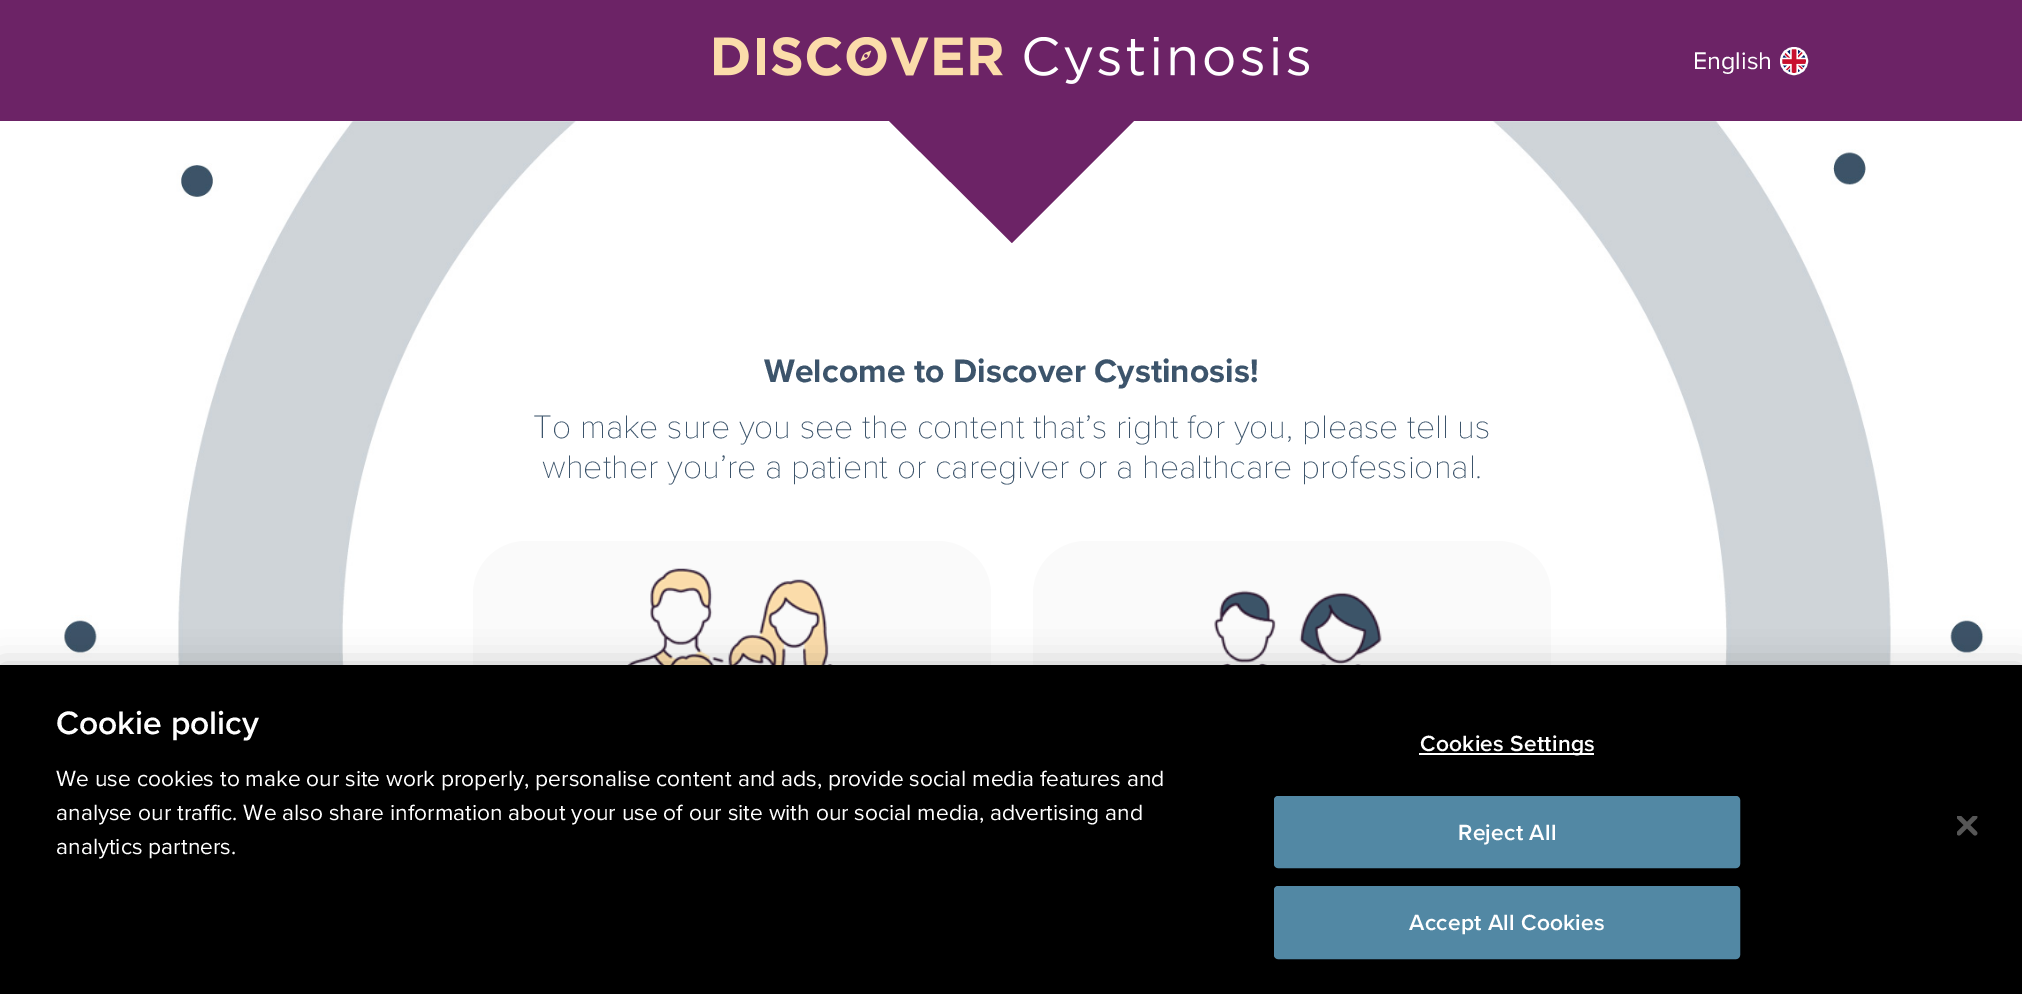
%!PS
<< /PageSize [2022 994] /PageUsesTransparency true >> setpagedevice
/rgb { 3 { 255 div 3 1 roll } repeat setrgbcolor } def
/font { [ exch dup neg 0 0 3 -1 roll 0 0 ] selectfont } def
/alpha { dup .setfillconstantalpha .setstrokeconstantalpha } def
/circle { newpath 0 360 arc closepath } def
/roundrect { 5 dict begin { /r /h /w /y /x } { exch def } forall
  x r add y moveto x w add y 2 copy h add r arct x w add y h add x 1 index r arct
  x y h add x y r arct x y 2 copy exch w add exch r arct closepath end } def
/shadow { 12 dict begin { /a /b /q /h /w /y /x } { exch def } forall gsave /was 0 def
  9 -2 -9 { dup b mul 4 div /e exch def 1 sub .425 mul 2.718 exch exp 1 add a .99 .min exch div /now exch def
    1 1 now sub 1 was sub div sub alpha /was now def
    w h .min e 2 mul add 0 gt { x e sub y e sub w e 2 mul add h e 2 mul add
      q e add b .6 mul add w h .min 2 div e add .min 0 .max roundrect fill } if } for grestore end } def
/picture { 5 dict begin { /h /w /y /x /name } { exch def } forall
  gsave x y translate w h scale
  w h 8 [w 0 0 h 0 0] name (r) file false 3 colorimage grestore end } def
0 .pushpdf14devicefilter
0 994 translate 1 -1 scale
4 setmiterlimit
255 255 255 rgb
0 0 2022 994 rectfill
108 35 102 rgb
0 0 2022 121 rectfill
(img/1.rgb) 714 37 595 47 picture
(img/2.rgb) 1782 49 24 25 picture
255 255 255 rgb
2 setlinewidth
1794 61 13 circle stroke
(img/3.rgb) 64 121 1922 544 picture
108 35 102 rgb
889 121 moveto 1134 121 lineto 1012 243 lineto closepath fill
250 250 250 rgb
473 541 518 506 53 roundrect fill
(img/4.rgb) 627 568 206 97 picture
1033 541 518 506 53 roundrect fill
(img/5.rgb) 1214 590 168 75 picture
0 0 0 rgb
0 665 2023 329 0 16 0.2 shadow
0 665 2022 329 rectfill
255 255 255 rgb
1419 753 175 2 rectfill
82 136 164 rgb
1275 797 464 70 3 roundrect gsave fill grestore
stroke
1275 887 464 71 3 roundrect gsave fill grestore
stroke
(img/6.rgb) 1957 816 21 20 picture
/ProximaNova-Regular 25 font
255 255 255 rgb
1693 69 moveto (English) show
/ProximaNova-Bold 33.6 font
60 84 107 rgb
764 382 moveto (Welcome to Discover Cystinosis!) show
/ProximaNova-Thin 33.6 font
533 438 moveto (To make sure you see the content that’s right for you, please tell us) show
542 478 moveto (whether you’re a patient or caregiver or a healthcare professional.) show
/ProximaNova-SemiBold 33.6 font
255 255 255 rgb
56 734 moveto (Cookie policy) show
/ProximaNova-Regular 22.75 font
[
  [(We use cookies to make our site work properly, personalise content and ads, provide social media features and) 56 786]
  [(analyse our traffic. We also share information about your use of our site with our social media, advertising and) 56 820]
  [(analytics partners.) 56 854]
] { aload pop moveto show } forall
/ProximaNova-SemiBold 22.75 font
1420 751 moveto 0.25 0 (Cookies Settings) ashow
1458 840 moveto 0.25 0 (Reject All) ashow
1409 930 moveto 0.25 0 (Accept All Cookies) ashow
.poppdf14devicefilter showpage
